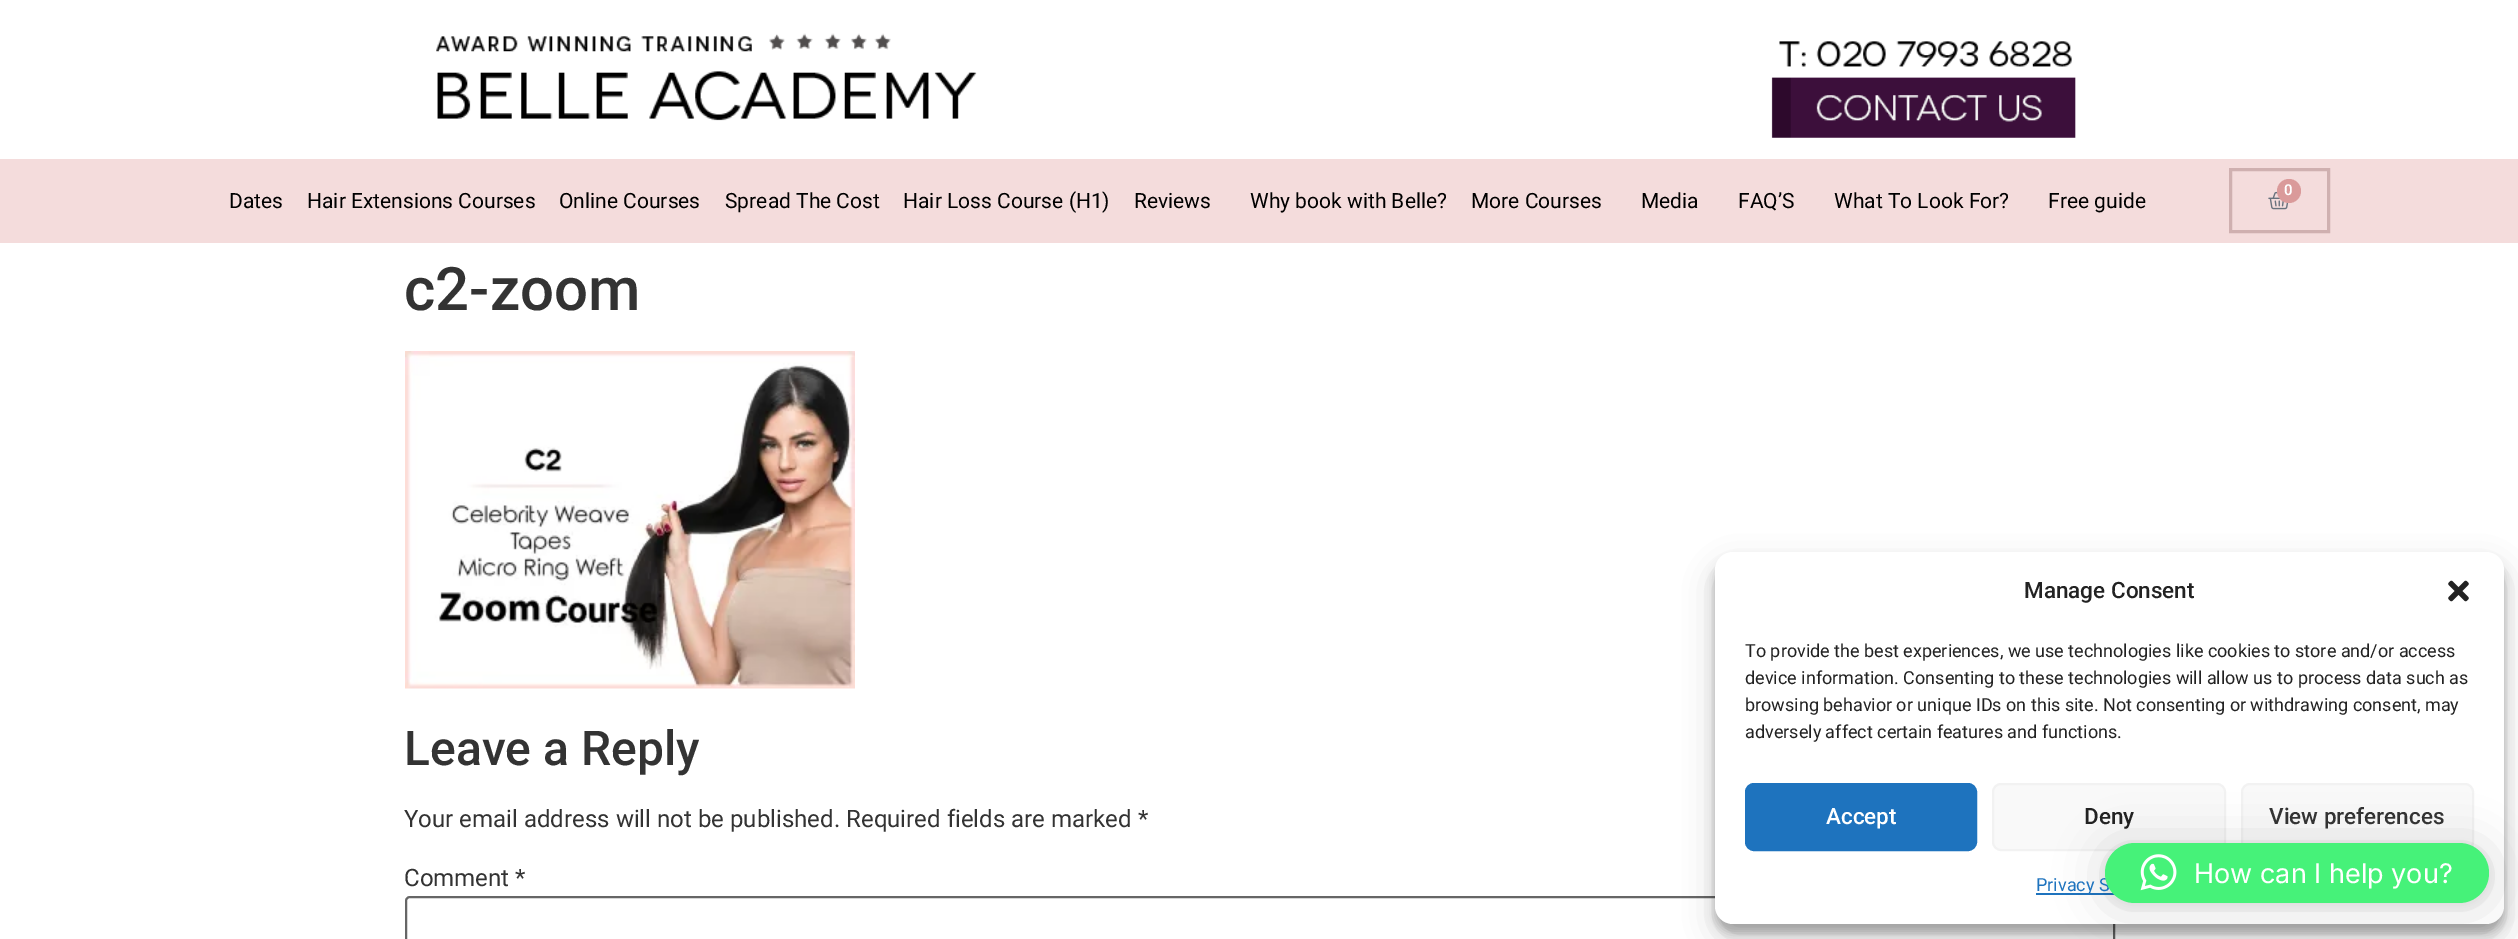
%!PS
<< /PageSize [2518 939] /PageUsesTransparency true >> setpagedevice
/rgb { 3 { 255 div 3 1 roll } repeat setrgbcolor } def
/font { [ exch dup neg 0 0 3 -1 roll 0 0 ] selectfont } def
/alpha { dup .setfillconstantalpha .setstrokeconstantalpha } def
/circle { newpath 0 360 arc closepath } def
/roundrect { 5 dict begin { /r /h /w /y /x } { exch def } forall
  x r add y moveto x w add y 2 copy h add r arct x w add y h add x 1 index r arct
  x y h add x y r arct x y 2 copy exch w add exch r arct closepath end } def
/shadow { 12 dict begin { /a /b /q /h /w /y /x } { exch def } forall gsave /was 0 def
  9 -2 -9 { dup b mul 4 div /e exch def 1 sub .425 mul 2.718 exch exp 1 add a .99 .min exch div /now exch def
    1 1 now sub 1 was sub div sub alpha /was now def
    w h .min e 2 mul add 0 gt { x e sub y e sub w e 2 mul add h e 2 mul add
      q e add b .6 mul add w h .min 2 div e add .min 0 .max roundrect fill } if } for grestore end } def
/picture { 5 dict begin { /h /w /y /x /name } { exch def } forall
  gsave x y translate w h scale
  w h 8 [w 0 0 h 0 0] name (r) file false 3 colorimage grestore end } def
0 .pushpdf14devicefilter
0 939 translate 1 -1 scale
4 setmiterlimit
255 255 255 rgb
0 0 2518 939 rectfill
(img/1.rgb) 436 33 541 88 picture
(img/2.rgb) 1771 41 305 97 picture
244 220 220 rgb
0 159 2518 84 rectfill
207 176 176 rgb
3 setlinewidth
2230.5 169.5 98 62 rectstroke
(img/3.rgb) 2268 191 21 19 picture
218 154 154 rgb
2289 191 12 circle fill
(img/4.rgb) 405 351 450 338 picture
102 102 102 rgb
2 setlinewidth
406 897 1708 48 4 roundrect stroke
0 0 0 rgb
1715 561 789 372 18 4.5 0.23 shadow
1715 567 789 372 18 15 0.19 shadow
255 255 255 rgb
1715 552 789 372 18 roundrect fill
(img/5.rgb) 2448 580 21 22 picture
30 115 190 rgb
1746 784 230 66 8 roundrect gsave fill grestore
stroke
249 249 249 rgb
1993 784 232 66 8 roundrect gsave fill grestore
242 242 242 rgb
stroke
249 249 249 rgb
2242 784 231 66 8 roundrect gsave fill grestore
242 242 242 rgb
stroke
30 115 190 rgb
2036 893 79 2 rectfill
0 0 0 rgb
2105 846 384 60 30 24 0.16 shadow
2105 845 384 60 30 4.5 0.06 shadow
/Roboto-Regular 21 font
[
  [(Dates) 229 208]
  [(Hair Extensions Courses) 307 208]
  [(Online Courses) 559 208]
  [(Spread The Cost) 725 208]
  [(Hair Loss Course \(H1\)) 903 208]
  [(Reviews) 1134 208]
  [(Why book with Belle?) 1250 208]
  [(More Courses) 1471 208]
  [(Media) 1641 208]
  [(FAQ’S) 1738 208]
  [(What To Look For?) 1834 208]
  [(Free guide) 2048 208]
] { aload pop moveto show } forall
/Roboto-SemiBold 15 font
255 255 255 rgb
2284 195 moveto (0) show
/Roboto-Medium 60 font
51 51 51 rgb
404 310 moveto (c2-zoom) show
/Roboto-Medium 48 font
404 765 moveto (Leave a Reply) show
/Roboto-Regular 24 font
404 827 moveto (Your email address will not be published. Required fields are marked *) show
404 886 moveto (Comment *) show
/Roboto-Medium 22.5 font
34 34 34 rgb
2024 598 moveto (Manage Consent) show
/Roboto-Regular 18 font
[
  [(To provide the best experiences, we use technologies like cookies to store and/or access) 1745 657]
  [(device information. Consenting to these technologies will allow us to process data such as) 1745 684]
  [(browsing behavior or unique IDs on this site. Not consenting or withdrawing consent, may) 1745 711]
  [(adversely affect certain features and functions.) 1745 738]
] { aload pop moveto show } forall
/Roboto-Medium 22.5 font
255 255 255 rgb
1826 824 moveto (Accept) show
34 34 34 rgb
2084 824 moveto (Deny) show
51 51 51 rgb
2269 824 moveto (View preferences) show
/Roboto-Regular 18 font
30 115 190 rgb
2036 891 moveto (Privacy S) show
70 242 121 rgb
2105 843 384 60 30 roundrect fill
(img/6.rgb) 2140 854 37 37 picture
/Inter-Regular 27 font
255 255 255 rgb
2194 883 moveto (How can I help you?) show
.poppdf14devicefilter showpage
